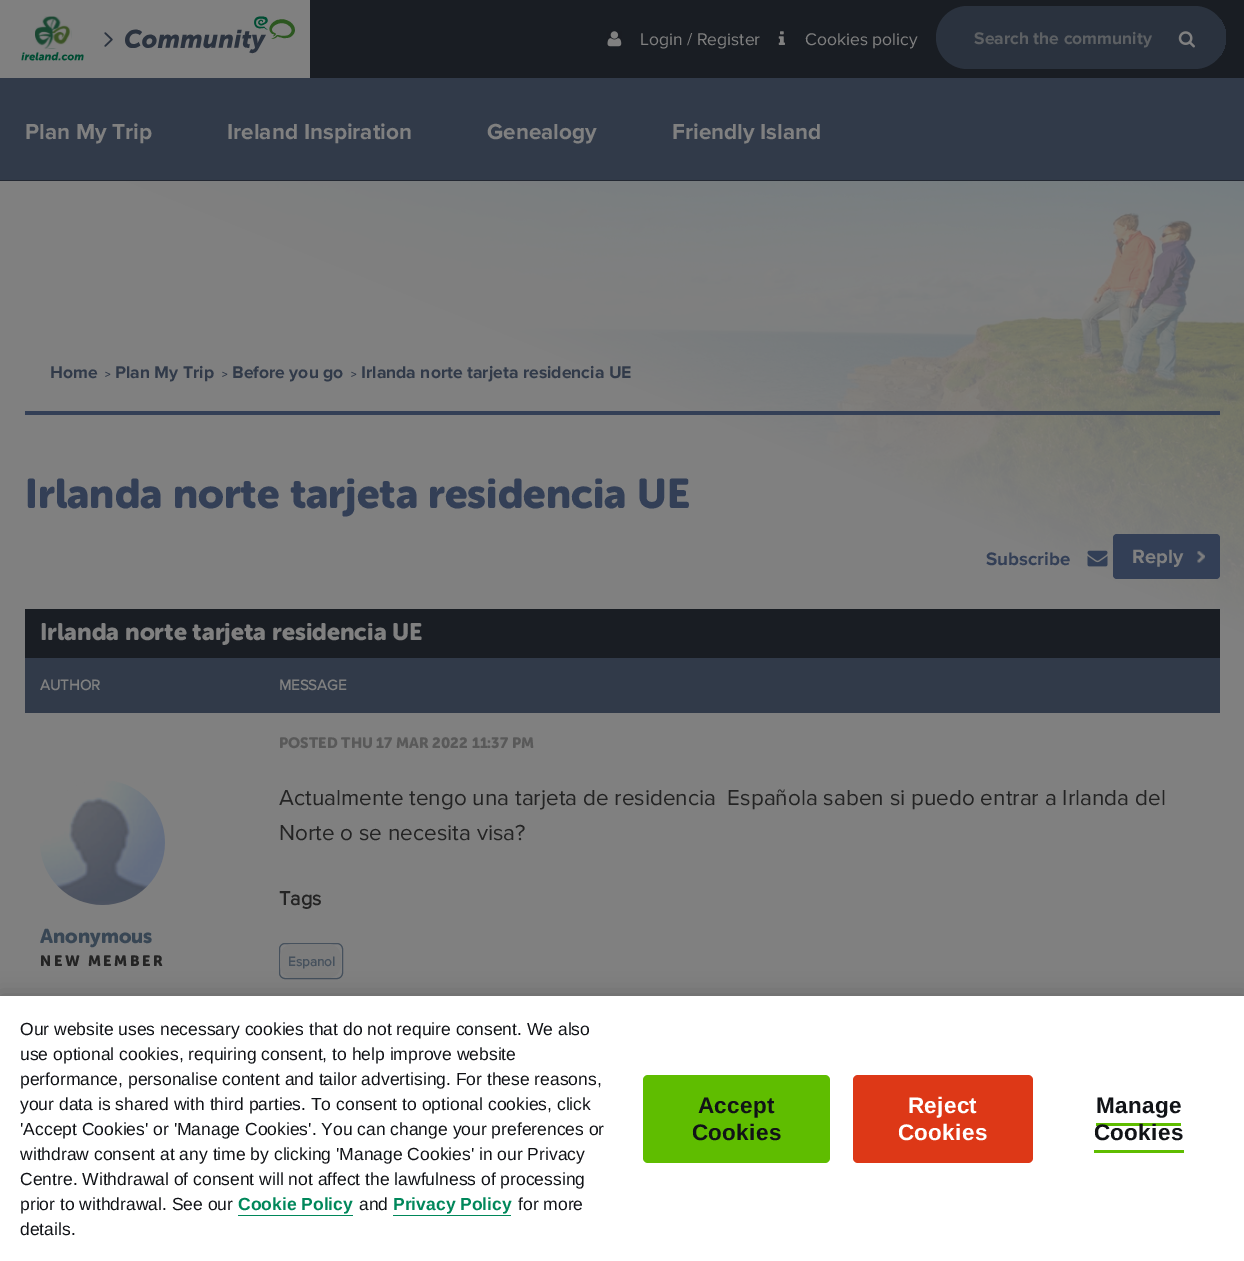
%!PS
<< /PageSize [1244 1261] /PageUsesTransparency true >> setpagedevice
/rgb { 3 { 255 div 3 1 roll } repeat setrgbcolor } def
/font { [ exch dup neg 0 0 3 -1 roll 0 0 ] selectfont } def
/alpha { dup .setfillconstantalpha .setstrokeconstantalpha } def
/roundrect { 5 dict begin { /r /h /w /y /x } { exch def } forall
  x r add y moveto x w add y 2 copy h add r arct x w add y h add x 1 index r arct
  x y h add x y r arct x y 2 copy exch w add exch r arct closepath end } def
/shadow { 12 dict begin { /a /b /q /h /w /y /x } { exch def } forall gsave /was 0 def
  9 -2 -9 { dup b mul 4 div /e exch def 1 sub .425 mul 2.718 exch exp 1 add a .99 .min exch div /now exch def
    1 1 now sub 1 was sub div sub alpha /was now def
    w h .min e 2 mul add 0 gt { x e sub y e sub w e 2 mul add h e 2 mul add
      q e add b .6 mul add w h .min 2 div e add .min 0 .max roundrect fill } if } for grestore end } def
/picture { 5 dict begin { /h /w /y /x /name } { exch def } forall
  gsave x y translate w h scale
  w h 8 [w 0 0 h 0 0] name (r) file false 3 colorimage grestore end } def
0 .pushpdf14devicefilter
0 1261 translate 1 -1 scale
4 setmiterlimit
255 255 255 rgb
0 0 1244 1261 rectfill
(img/1.rgb) 0 181 1244 682 picture
25 29 35 rgb
310 0 934 78 rectfill
128 128 128 rgb
0 0 310 78 rectfill
(img/2.rgb) 21 16 63 45 picture
(img/3.rgb) 104 32 9 15 picture
(img/4.rgb) 125 16 170 38 picture
(img/5.rgb) 607 31 15 16 picture
(img/6.rgb) 778 31 7 14 picture
42 50 62 rgb
936 6 290 63 31.5 roundrect fill
gsave
936 6 290 63 31.5 roundrect clip newpath
961 19 265 37 rectfill
grestore
(img/7.rgb) 1178 31 17 17 picture
[
  [0 78 1244 102 49 58 73]
  [0 180 1244 1 35 40 50]
  [25 411 1195 4 51 63 86]
] { aload pop rgb rectfill } forall
(img/8.rgb) 1087 550 21 17 picture
1113 534 107 45 4 roundrect fill
(img/9.rgb) 1197 551 8 12 picture
[
  [25 609 1195 49 25 29 35]
  [25 658 1195 55 49 58 73]
  [0 863 1244 133 128 128 128]
] { aload pop rgb rectfill } forall
(img/10.rgb) 40 781 125 124 picture
70 81 93 rgb
279.5 943.5 63 35 5.5 roundrect stroke
124 124 124 rgb
280 944 61 34 13 roundrect fill
0 0 0 rgb
0 996 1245 265 0 11 0.2 shadow
[
  [0 996 1244 265 255 255 255]
  [238 1215 115 1 0 135 90]
  [393 1215 118 1 0 135 90]
] { aload pop rgb rectfill } forall
95 189 0 rgb
643 1075 187 88 5 roundrect fill
221 56 23 rgb
853 1075 180 88 5 roundrect fill
95 189 0 rgb
1096 1123 85 3 rectfill
1094 1150 90 3 rectfill
/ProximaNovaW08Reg-Regular 17.5 font
128 128 128 rgb
640 45 moveto (Login / Register) show
805 45 moveto (Cookies policy) show
/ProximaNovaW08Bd-Bold 17.5 font
93 96 99 rgb
974 44 moveto (Search the community) show
/ProximaNovaW08Bd-Bold 22.5 font
128 128 128 rgb
[
  [(Plan My Trip) 25 139]
  [(Ireland Inspiration) 227 139]
  [(Genealogy) 487 139]
  [(Friendly Island) 672 139]
] { aload pop moveto show } forall
/ProximaNovaW08Bd-Bold 17.5 font
49 58 73 rgb
50 378 moveto (Home) show
/ProximaNovaW08Bd-Bold 11 font
105 378 moveto (>) show
/ProximaNovaW08Bd-Bold 17.5 font
115 378 moveto (Plan My Trip) show
/ProximaNovaW08Bd-Bold 11 font
222 378 moveto (>) show
/ProximaNovaW08Bd-Bold 17.5 font
232 378 moveto (Before you go) show
/ProximaNovaW08Bd-Bold 11 font
351 378 moveto (>) show
/ProximaNovaW08Bd-Bold 17.5 font
361 378 moveto (Irlanda norte tarjeta residencia UE) show
/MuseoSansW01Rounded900-Regular 41.25 font
51 63 86 rgb
25 508 moveto (Irlanda norte tarjeta residencia UE) show
/ProximaNovaW08Bd-Bold 18.75 font
986 565 moveto (Subscribe) show
/ProximaNovaW08Bd-Bold 20 font
128 128 128 rgb
1132 563 moveto (Reply) show
/MuseoSansW01Rounded900-Regular 23.75 font
40 640 moveto (Irlanda norte tarjeta residencia UE) show
/ProximaNovaW08Reg-Bold 15 font
40 690 moveto (AUTHOR) show
279 690 moveto (MESSAGE) show
/MuseoSansW01Rounded900-Regular 15 font
89 89 89 rgb
279 748 moveto (POSTED THU 17 MAR 2022 11:37 PM) show
/MuseoSansW01Rounded900-Regular 20 font
56 70 84 rgb
40 943 moveto (Anonymous) show
/MuseoSansW01Rounded900-Regular 15 font
36 36 36 rgb
40 966 moveto 2.5 0 (NEW MEMBER) ashow
/ProximaNovaW08Reg-Regular 22.5 font
279 805 moveto (Actualmente tengo una tarjeta de residencia  Española saben si puedo entrar a Irlanda del) show
279 840 moveto (Norte o se necesita visa?) show
/ProximaNovaW08Reg-Bold 20 font
279 905 moveto (Tags) show
/ProximaNovaW08Reg-Bold 13.5 font
70 81 93 rgb
288 966 moveto (Espanol) show
/LiberationSans-Regular 17.5 font
17 19 23 rgb
[
  [(Our website uses necessary cookies that do not require consent. We also) 20 1035]
  [(use optional cookies, requiring consent, to help improve website) 20 1060]
  [(performance, personalise content and tailor advertising. For these reasons,) 20 1085]
  [(your data is shared with third parties. To consent to optional cookies, click) 20 1110]
  [('Accept Cookies' or 'Manage Cookies'. You can change your preferences or) 20 1135]
  [(withdraw consent at any time by clicking 'Manage Cookies' in our Privacy) 20 1160]
  [(Centre. Withdrawal of consent will not affect the lawfulness of processing) 20 1185]
  [(prior to withdrawal. See our) 20 1210]
] { aload pop moveto show } forall
/LiberationSans-Bold 17.5 font
0 135 90 rgb
238 1210 moveto (Cookie Policy) show
/LiberationSans-Regular 17.5 font
17 19 23 rgb
359 1210 moveto (and) show
/LiberationSans-Bold 17.5 font
0 135 90 rgb
393 1210 moveto (Privacy Policy) show
/LiberationSans-Regular 17.5 font
17 19 23 rgb
518 1210 moveto (for more) show
20 1235 moveto (details.) show
/LiberationSans-Bold 22.5 font
698 1113 moveto 0.25 0 (Accept) ashow
692 1140 moveto 0.25 0 (Cookies) ashow
255 255 255 rgb
908 1113 moveto 0.25 0 (Reject) ashow
898 1140 moveto 0.25 0 (Cookies) ashow
17 19 23 rgb
1096 1113 moveto 0.25 0 (Manage) ashow
1094 1140 moveto 0.25 0 (Cookies) ashow
.poppdf14devicefilter showpage
